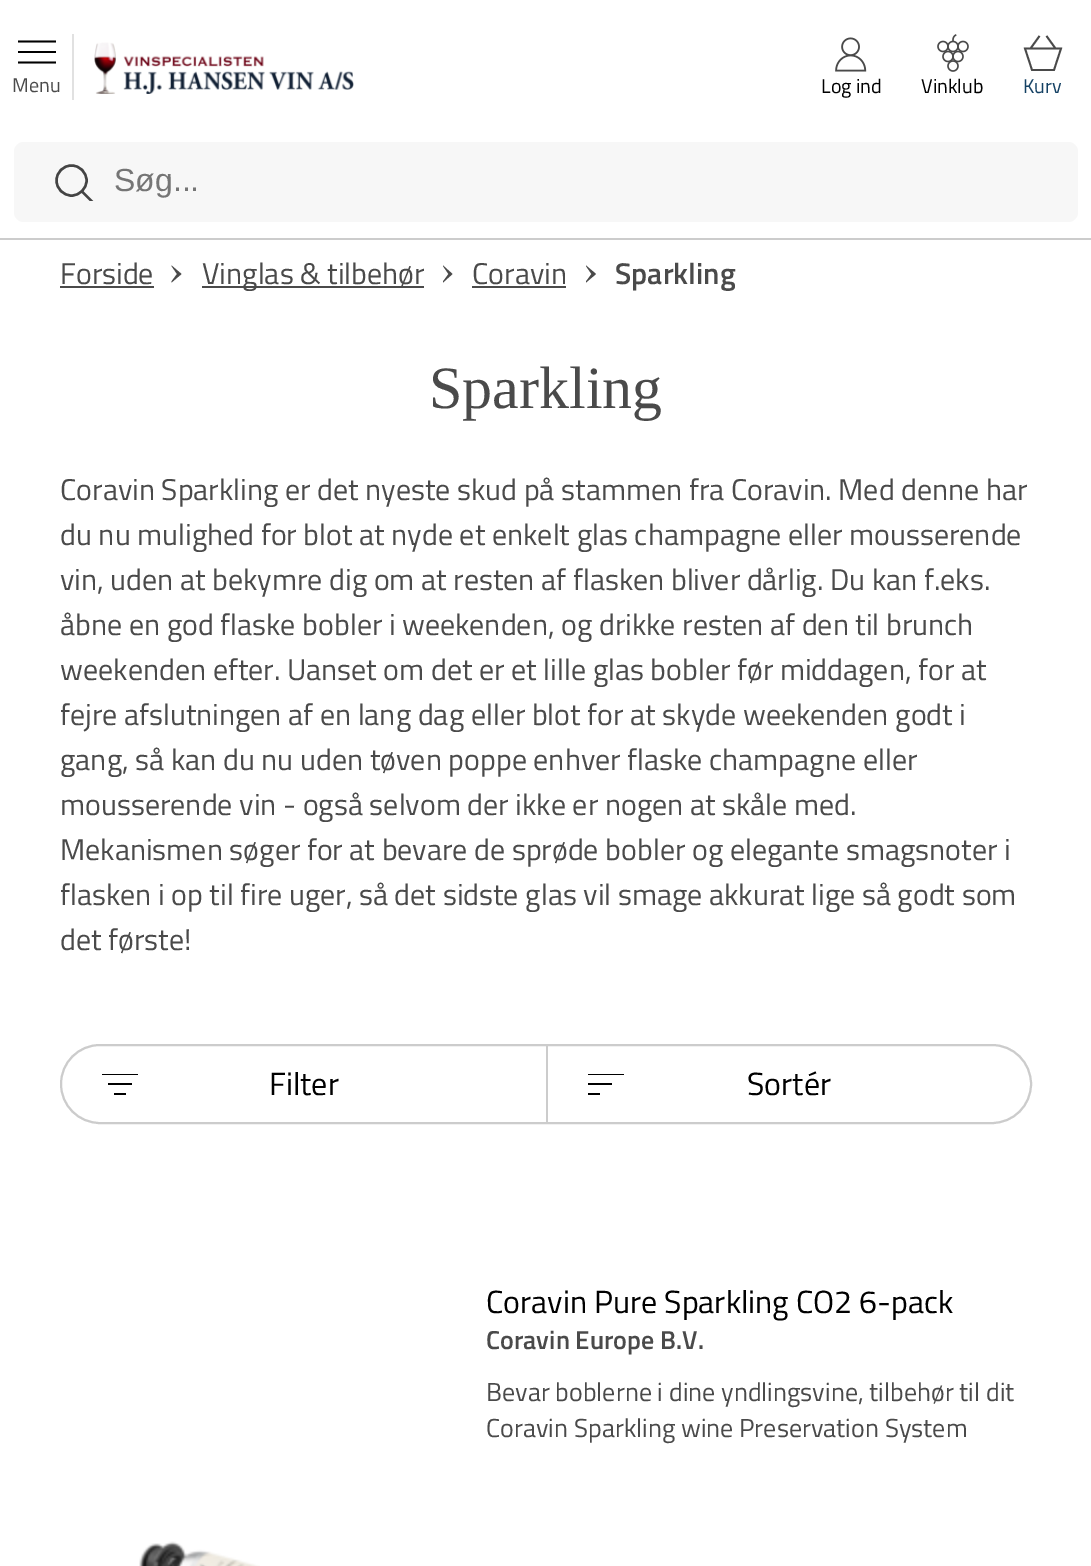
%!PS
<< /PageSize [1091 1566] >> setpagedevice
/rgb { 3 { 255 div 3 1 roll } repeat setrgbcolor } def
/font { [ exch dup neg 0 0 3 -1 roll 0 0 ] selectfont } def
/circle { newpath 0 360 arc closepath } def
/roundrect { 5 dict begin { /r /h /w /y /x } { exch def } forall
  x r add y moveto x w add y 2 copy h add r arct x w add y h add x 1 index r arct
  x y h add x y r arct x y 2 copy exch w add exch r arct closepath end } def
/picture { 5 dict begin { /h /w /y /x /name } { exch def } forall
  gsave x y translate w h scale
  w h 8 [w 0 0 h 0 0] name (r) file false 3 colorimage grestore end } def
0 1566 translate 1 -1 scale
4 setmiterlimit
255 255 255 rgb
0 0 1091 1566 rectfill
204 204 204 rgb
0 238 1091 2 rectfill
225 225 225 rgb
72 34 2 66 rectfill
0 0 0 rgb
18 63.5 moveto 56 63.5 lineto 56 61.5 lineto 18 61.5 lineto closepath 56 53 moveto 56 51 lineto 18 51 lineto 18 53 lineto closepath 18 40.5 moveto 18 42.5 lineto 56 42.5 lineto 56 40.5 lineto closepath eofill
(img/1.rgb) 94 42 260 52 picture
(img/2.rgb) 835 37 32 35 picture
(img/3.rgb) 937 34 32 38 picture
74 74 74 rgb
1.8 setlinewidth
1030.5 48.5 moveto 1039.5 36 lineto 1055.5 48.5 moveto 1046.5 36 lineto 1032 70 moveto 1025 48.5 lineto 1061 48.5 lineto 1054 70 lineto closepath stroke
247 247 247 rgb
14 142 1064 80 10 roundrect fill
gsave
54 163 40 38 rectclip
68 68 68 rgb
2.4 setlinewidth
2 setlinecap
91.5 201 moveto 82 191.5 lineto stroke
grestore
68 68 68 rgb
2.4 setlinewidth
71.5 180.5 15 circle stroke
74 74 74 rgb
60 286 94 2 rectfill
177 274 moveto 171.5 266 lineto 171.5 265.5 lineto 181.5 274 lineto 171.5 282.5 lineto 171.5 281.5 lineto closepath eofill
202 286 222 2 rectfill
448.5 274 moveto 443 266 lineto 443 265.5 lineto 452.5 274 lineto 443 282.5 lineto 443 281.5 lineto closepath eofill
472 286 94 2 rectfill
591.5 274 moveto 586 266 lineto 586 265.5 lineto 596 274 lineto 586 282.5 lineto 586 281.5 lineto closepath eofill
204 204 204 rgb
2 setlinewidth
61 1045 970 78 39 roundrect stroke
546 1046 2 76 rectfill
gsave
102 1074 36 21 rectclip
0 0 0 rgb
114 1095 moveto 126 1095 lineto 126 1093 lineto 114 1093 lineto closepath 132 1085 moveto 132 1083 lineto 108 1083 lineto 108 1085 lineto closepath 102 1073 moveto 102 1075 lineto 138 1075 lineto 138 1073 lineto closepath eofill
grestore
gsave
588 1074 36 21 rectclip
0 0 0 rgb
588 1095 moveto 600 1095 lineto 600 1093 lineto 588 1093 lineto closepath 612 1085 moveto 612 1083 lineto 588 1083 lineto 588 1085 lineto closepath 588 1073 moveto 588 1075 lineto 624 1075 lineto 624 1073 lineto closepath eofill
grestore
(img/4.rgb) 139 1541 121 25 picture
/TitilliumWeb-Regular 20 font
74 74 74 rgb
12 92 moveto (Menu) show
0 0 0 rgb
821 93 moveto (Log ind) show
921 93 moveto (Vinklub) show
20 65 100 rgb
1023 93 moveto (Kurv) show
/LiberationSans-Regular 32 font
117 117 117 rgb
114 191 moveto (Søg...) show
/TitilliumWeb-Regular 30 font
74 74 74 rgb
[
  [(Forside) 60 284]
  [(Vinglas & tilbehør) 202 284]
  [(Coravin) 472 284]
] { aload pop moveto show } forall
/TitilliumWeb-SemiBold 30 font
615 284 moveto (Sparkling) show
/LiberationSerif-Regular 60 font
429 408 moveto (Sparkling) show
/TitilliumWeb-Regular 30 font
[
  [(Coravin Sparkling er det nyeste skud på stammen fra Coravin. Med denne har) 60 500]
  [(du nu mulighed for blot at nyde et enkelt glas champagne eller mousserende) 60 545]
  [(vin, uden at bekymre dig om at resten af flasken bliver dårlig. Du kan f.eks.) 60 590]
  [(åbne en god flaske bobler i weekenden, og drikke resten af den til brunch) 60 635]
  [(weekenden efter. Uanset om det er et lille glas bobler før middagen, for at) 60 680]
  [(fejre afslutningen af en lang dag eller blot for at skyde weekenden godt i) 60 725]
  [(gang, så kan du nu uden tøven poppe enhver flaske champagne eller) 60 770]
  [(mousserende vin - også selvom der ikke er nogen at skåle med.) 60 815]
  [(Mekanismen søger for at bevare de sprøde bobler og elegante smagsnoter i) 60 860]
  [(flasken i op til fire uger, så det sidste glas vil smage akkurat lige så godt som) 60 905]
  [(det første!) 60 950]
] { aload pop moveto show } forall
/TitilliumWeb-Regular 32 font
0 0 0 rgb
[
  [(Filter) 269 1095]
  [(Sortér) 747 1095]
  [(Coravin Pure Sparkling CO2 6-pack) 486 1313]
] { aload pop moveto show } forall
/TitilliumWeb-SemiBold 26 font
74 74 74 rgb
486 1349 moveto (Coravin Europe B.V.) show
/TitilliumWeb-Regular 26 font
486 1401 moveto (Bevar boblerne i dine yndlingsvine, tilbehør til dit) show
486 1437 moveto (Coravin Sparkling wine Preservation System) show
showpage
